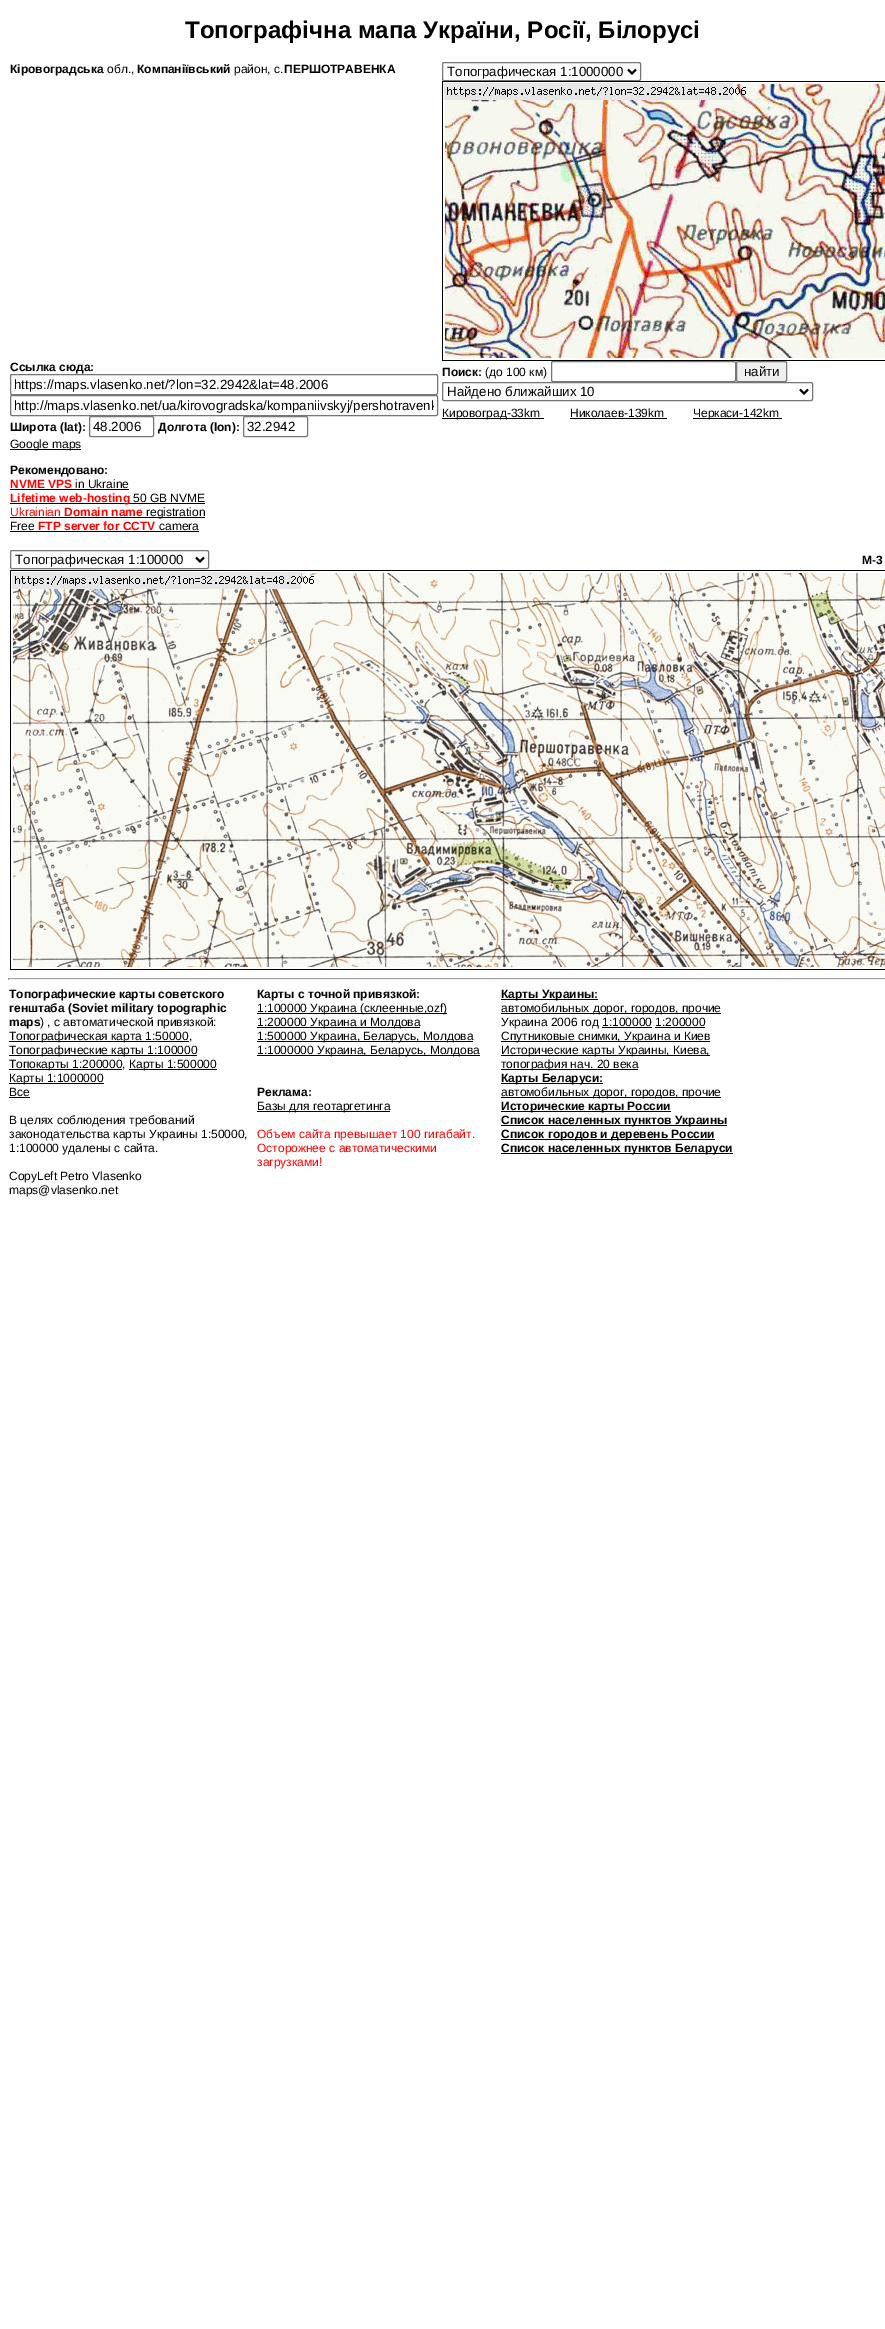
%!PS
<< /PageSize [885 2329] >> setpagedevice
/rgb { 3 { 255 div 3 1 roll } repeat setrgbcolor } def
/font { [ exch dup neg 0 0 3 -1 roll 0 0 ] selectfont } def
/roundrect { 5 dict begin { /r /h /w /y /x } { exch def } forall
  x r add y moveto x w add y 2 copy h add r arct x w add y h add x 1 index r arct
  x y h add x y r arct x y 2 copy exch w add exch r arct closepath end } def
/picture { 5 dict begin { /h /w /y /x /name } { exch def } forall
  gsave x y translate w h scale
  w h 8 [w 0 0 h 0 0] name (r) file false 3 colorimage grestore end } def
0 2329 translate 1 -1 scale
4 setmiterlimit
255 255 255 rgb
0 0 885 2329 rectfill
118 118 118 rgb
10.5 374.5 427 20 1.5 roundrect stroke
10.5 395.5 427 20 1.5 roundrect stroke
89.5 416.5 64 20 1.5 roundrect stroke
243.5 416.5 64 20 1.5 roundrect stroke
[
  [10 449 71 1 0 0 0]
  [10 489 119 1 0 0 0]
  [10 503 195 1 0 0 0]
  [10 517 195 1 0 0 0]
  [10 531 189 1 0 0 0]
] { aload pop rgb rectfill } forall
118 118 118 rgb
442.5 62.5 198 18 1.5 roundrect stroke
0 0 0 rgb
2 setlinewidth
628 69.5 moveto 632 73.5 lineto 636 69.5 lineto stroke
(img/1.rgb) 442 81 443 280 picture
118 118 118 rgb
1 setlinewidth
551.5 361.5 184 20 1.5 roundrect stroke
239 239 239 rgb
736.5 361.5 50 20 1.5 roundrect gsave fill grestore
118 118 118 rgb
stroke
442.5 382.5 370 18 1.5 roundrect stroke
0 0 0 rgb
2 setlinewidth
800 389.5 moveto 804 393.5 lineto 808 389.5 lineto stroke
[
  [442 418 102 1 0 0 0]
  [570 418 97 1 0 0 0]
  [693 418 89 1 0 0 0]
] { aload pop rgb rectfill } forall
118 118 118 rgb
1 setlinewidth
10.5 550.5 198 18 1.5 roundrect stroke
0 0 0 rgb
2 setlinewidth
196 557.5 moveto 200 561.5 lineto 204 557.5 lineto stroke
(img/2.rgb) 10 570 875 400 picture
[
  [8 978 877 1 159 159 159]
  [8 979 877 1 238 238 238]
  [8 978 1 2 159 159 159]
  [9 1041 180 1 0 0 0]
  [9 1055 188 1 0 0 0]
  [9 1069 113 1 0 0 0]
  [129 1069 88 1 0 0 0]
  [9 1083 95 1 0 0 0]
  [9 1097 21 1 0 0 0]
  [257 1013 190 1 0 0 0]
  [257 1027 163 1 0 0 0]
  [257 1041 216 1 0 0 0]
  [257 1055 223 1 0 0 0]
  [257 1111 133 1 0 0 0]
  [501 999 97 1 0 0 0]
  [501 1013 220 1 0 0 0]
  [602 1027 50 1 0 0 0]
  [655 1027 50 1 0 0 0]
  [501 1041 209 1 0 0 0]
  [501 1055 209 1 0 0 0]
  [501 1069 137 1 0 0 0]
  [501 1083 102 1 0 0 0]
  [501 1097 220 1 0 0 0]
  [501 1111 170 1 0 0 0]
  [501 1125 226 1 0 0 0]
  [501 1139 214 1 0 0 0]
  [501 1153 232 1 0 0 0]
] { aload pop rgb rectfill } forall
/LiberationSans-Bold 24 font
185 38 moveto (Топографічна мапа України, Росії, Білорусі) show
/LiberationSans-Bold 12 font
10 73 moveto (Кіровоградська) show
/LiberationSans-Regular 12 font
107 73 moveto (обл.,) show
/LiberationSans-Bold 12 font
137 73 moveto (Компаніївський) show
/LiberationSans-Regular 12 font
234 73 moveto (район, с.) show
/LiberationSans-Bold 12 font
284 73 moveto (ПЕРШОТРАВЕНКА) show
10 371 moveto (Ссылка сюда:) show
/LiberationSans-Regular 13.3 font
14 389 moveto (https://maps.vlasenko.net/?lon=32.2942&lat=48.2006) show
gsave
14 398 420 15 rectclip
14 410 moveto (http://maps.vlasenko.net/ua/kirovogradska/kompaniivskyj/pershotravenk) show
grestore
/LiberationSans-Bold 12 font
10 431 moveto (Широта \(lat\):) show
/LiberationSans-Regular 13.3 font
93 431 moveto (48.2006) show
/LiberationSans-Bold 12 font
158 431 moveto (Долгота \(lon\):) show
/LiberationSans-Regular 13.3 font
247 431 moveto (32.2942) show
/LiberationSans-Regular 12 font
10 448 moveto (Google maps) show
/LiberationSans-Bold 12 font
10 474 moveto (Рекомендовано:) show
255 0 0 rgb
10 488 moveto (NVME VPS) show
/LiberationSans-Regular 12 font
0 0 0 rgb
75 488 moveto (in Ukraine) show
/LiberationSans-Bold 12 font
255 0 0 rgb
10 502 moveto (Lifetime web-hosting) show
/LiberationSans-Regular 12 font
0 0 0 rgb
133 502 moveto (50 GB NVME) show
255 0 0 rgb
10 516 moveto (Ukrainian) show
/LiberationSans-Bold 12 font
64 516 moveto (Domain name) show
/LiberationSans-Regular 12 font
0 0 0 rgb
146 516 moveto (registration) show
10 530 moveto (Free) show
/LiberationSans-Bold 12 font
255 0 0 rgb
38 530 moveto (FTP server for CCTV) show
/LiberationSans-Regular 12 font
0 0 0 rgb
159 530 moveto (camera) show
/LiberationSans-Regular 13.3 font
447 76 moveto (Топографическая 1:1000000) show
/LiberationSans-Bold 12 font
442 376 moveto (Поиск:) show
/LiberationSans-Regular 12 font
485 376 moveto (\(до 100 км\)) show
/LiberationSans-Regular 13.3 font
744 376 moveto (найти) show
447 396 moveto (Найдено ближайших 10) show
/LiberationSans-Regular 12 font
[
  [(Кировоград-33km) 442 417]
  [(Николаев-139km) 570 417]
  [(Черкаси-142km) 693 417]
] { aload pop moveto show } forall
/LiberationSans-Regular 13.3 font
15 564 moveto (Топографическая 1:100000) show
/LiberationSans-Bold 12 font
[
  [(M-3) 862 564]
  [(Топографические карты советского) 9 998]
  [(генштаба \(Soviet military topographic) 9 1012]
  [(maps) 9 1026]
] { aload pop moveto show } forall
/LiberationSans-Regular 12 font
[
  [(\) , с автоматической привязкой:) 40 1026]
  [(Топографическая карта 1:50000,) 9 1040]
  [(Топографические карты 1:100000) 9 1054]
  [(Топокарты 1:200000,) 9 1068]
  [(Карты 1:500000) 129 1068]
  [(Карты 1:1000000) 9 1082]
  [(Все) 9 1096]
  [(В целях соблюдения требований) 9 1124]
  [(законодательства карты Украины 1:50000,) 9 1138]
  [(1:100000 удалены с сайта.) 9 1152]
  [(CopyLeft Petro Vlasenko) 9 1180]
  [(maps@vlasenko.net) 9 1194]
] { aload pop moveto show } forall
/LiberationSans-Bold 12 font
257 998 moveto (Карты с точной привязкой:) show
/LiberationSans-Regular 12 font
[
  [(1:100000 Украина \(cклеенные,ozf\)) 257 1012]
  [(1:200000 Украина и Молдова) 257 1026]
  [(1:500000 Украина, Беларусь, Молдова) 257 1040]
  [(1:1000000 Украина, Беларусь, Молдова) 257 1054]
] { aload pop moveto show } forall
/LiberationSans-Bold 12 font
257 1096 moveto (Реклама:) show
/LiberationSans-Regular 12 font
257 1110 moveto (Базы для геотаргетинга) show
255 0 0 rgb
[
  [(Объем сайта превышает 100 гигабайт.) 257 1138]
  [(Осторожнее с автоматическими) 257 1152]
  [(загрузками!) 257 1166]
] { aload pop moveto show } forall
/LiberationSans-Bold 12 font
0 0 0 rgb
501 998 moveto (Карты Украины:) show
/LiberationSans-Regular 12 font
[
  [(автомобильных дорог, городов, прочие) 501 1012]
  [(Украина 2006 год 1:100000 1:200000) 501 1026]
  [(Спутниковые снимки, Украина и Киев) 501 1040]
  [(Исторические карты Украины, Киева,) 501 1054]
  [(топография нач. 20 века) 501 1068]
] { aload pop moveto show } forall
/LiberationSans-Bold 12 font
501 1082 moveto (Карты Беларуси:) show
/LiberationSans-Regular 12 font
501 1096 moveto (автомобильных дорог, городов, прочие) show
/LiberationSans-Bold 12 font
[
  [(Исторические карты России) 501 1110]
  [(Список населенных пунктов Украины) 501 1124]
  [(Список городов и деревень России) 501 1138]
  [(Список населенных пунктов Беларуси) 501 1152]
] { aload pop moveto show } forall
showpage
